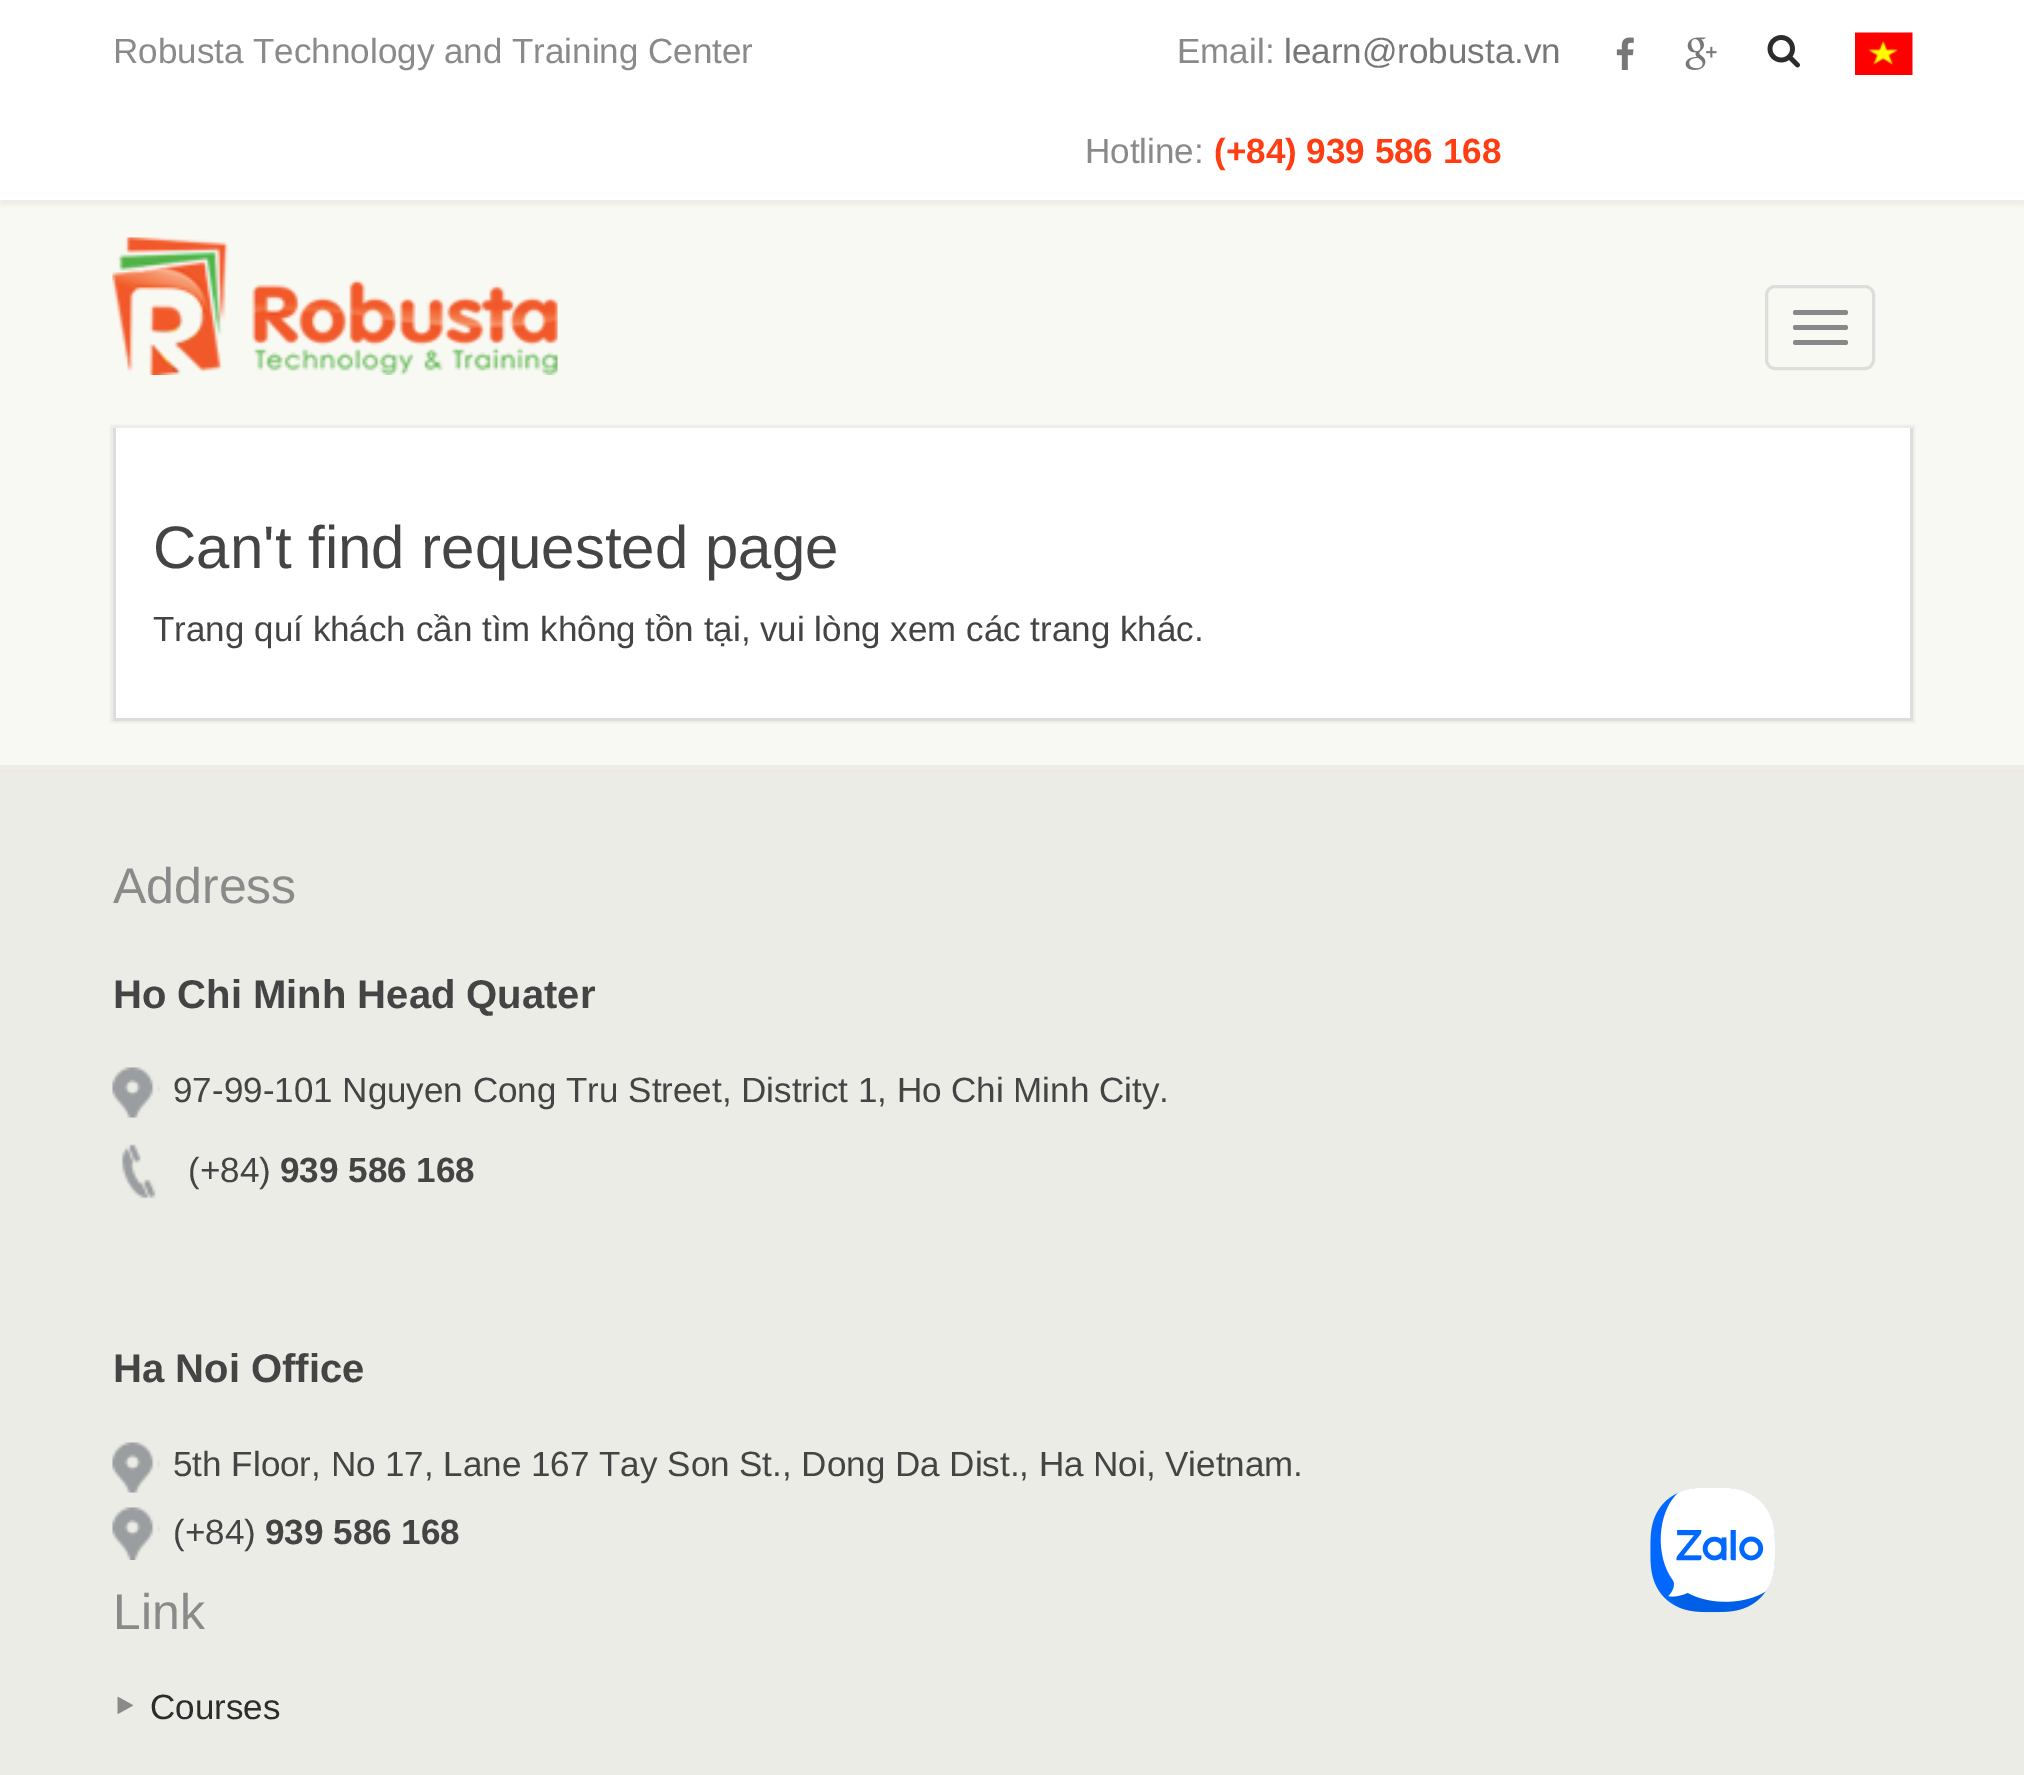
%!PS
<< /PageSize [2024 1775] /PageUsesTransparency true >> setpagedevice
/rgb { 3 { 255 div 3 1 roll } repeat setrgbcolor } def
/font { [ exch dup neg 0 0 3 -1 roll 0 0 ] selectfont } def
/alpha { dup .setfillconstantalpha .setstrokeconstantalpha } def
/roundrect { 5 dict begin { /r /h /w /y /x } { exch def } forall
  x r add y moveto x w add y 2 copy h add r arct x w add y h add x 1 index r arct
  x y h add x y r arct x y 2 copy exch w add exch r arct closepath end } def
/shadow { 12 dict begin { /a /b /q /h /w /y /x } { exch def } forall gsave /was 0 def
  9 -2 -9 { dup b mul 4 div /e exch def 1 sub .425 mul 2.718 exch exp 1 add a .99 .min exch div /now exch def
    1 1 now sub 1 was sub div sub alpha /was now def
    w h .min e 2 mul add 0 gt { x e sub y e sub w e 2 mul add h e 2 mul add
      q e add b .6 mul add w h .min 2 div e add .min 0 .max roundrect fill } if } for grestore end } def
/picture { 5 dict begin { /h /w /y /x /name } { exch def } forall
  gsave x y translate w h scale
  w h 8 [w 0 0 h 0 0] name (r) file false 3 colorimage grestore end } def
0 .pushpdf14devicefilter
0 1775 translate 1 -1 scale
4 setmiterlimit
249 249 243 rgb
0 0 2024 1775 rectfill
237 237 228 rgb
0 5 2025 200 0 2.5 1 shadow
255 255 255 rgb
0 0 2024 200 rectfill
(img/1.rgb) 1616 37 18 33 picture
(img/2.rgb) 1685 37 32 33 picture
(img/3.rgb) 1767 35 33 33 picture
(img/4.rgb) 1855 32 58 43 picture
(img/5.rgb) 112 237 446 138 picture
221 221 221 rgb
3 setlinewidth
1766.5 286.5 107 82 8.5 roundrect stroke
136 136 136 rgb
1793 310 55 5 2.5 roundrect fill
1793 325 55 5 2.5 roundrect fill
1793 340 55 5 2.5 roundrect fill
238 234 231 rgb
110 425 1805 298 0 1 1 shadow
[
  [116 428 1794 290 255 255 255]
  [1910 428 3 292 221 221 221]
  [113 718 1800 3 221 221 221]
  [113 428 3 292 221 221 221]
] { aload pop rgb rectfill } forall
237 237 228 rgb
0 765 moveto 0 770 lineto 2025 770 lineto 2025 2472 lineto 0 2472 lineto 0 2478 lineto 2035 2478 lineto 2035 765 lineto closepath fill
236 236 230 rgb
0 773 2024 1002 rectfill
235 232 229 rgb
0 770 2024 3 rectfill
(img/6.rgb) 112 1067 49 51 picture
(img/7.rgb) 121 1144 35 55 picture
(img/6.rgb) 112 1442 49 51 picture
(img/8.rgb) 112 1507 49 53 picture
(img/9.rgb) 117 1696 17 18 picture
(img/10.rgb) 1650 1488 125 125 picture
/LiberationSans-Regular 35 font
138 138 138 rgb
113 63 moveto (Robusta Technology and Training Center) show
1177 63 moveto (Email:) show
119 119 119 rgb
1284 63 moveto (learn@robusta.vn) show
138 138 138 rgb
1085 163 moveto (Hotline:) show
/LiberationSans-Bold 35 font
255 61 18 rgb
1214 163 moveto (\(+84\) 939 586 168) show
/LiberationSans-Regular 60 font
68 68 68 rgb
153 568 moveto (Can't find requested page) show
/LiberationSans-Regular 35 font
153 641 moveto (Trang quí khách cần tìm không tồn tại, vui lòng xem các trang khác.) show
/LiberationSans-Regular 50 font
138 138 138 rgb
113 903 moveto (Address) show
/LiberationSans-Bold 40 font
68 68 68 rgb
113 1008 moveto (Ho Chi Minh Head Quater) show
/LiberationSans-Regular 35 font
173 1102 moveto (97-99-101 Nguyen Cong Tru Street, District 1, Ho Chi Minh City.) show
188 1182 moveto (\(+84\)) show
/LiberationSans-Bold 35 font
280 1182 moveto (939 586 168) show
/LiberationSans-Bold 40 font
113 1382 moveto (Ha Noi Office) show
/LiberationSans-Regular 35 font
173 1476 moveto (5th Floor, No 17, Lane 167 Tay Son St., Dong Da Dist., Ha Noi, Vietnam.) show
173 1544 moveto (\(+84\)) show
/LiberationSans-Bold 35 font
265 1544 moveto (939 586 168) show
/LiberationSans-Regular 50 font
138 138 138 rgb
113 1629 moveto (Link) show
/LiberationSans-Regular 35 font
44 44 44 rgb
150 1719 moveto (Courses) show
.poppdf14devicefilter showpage
